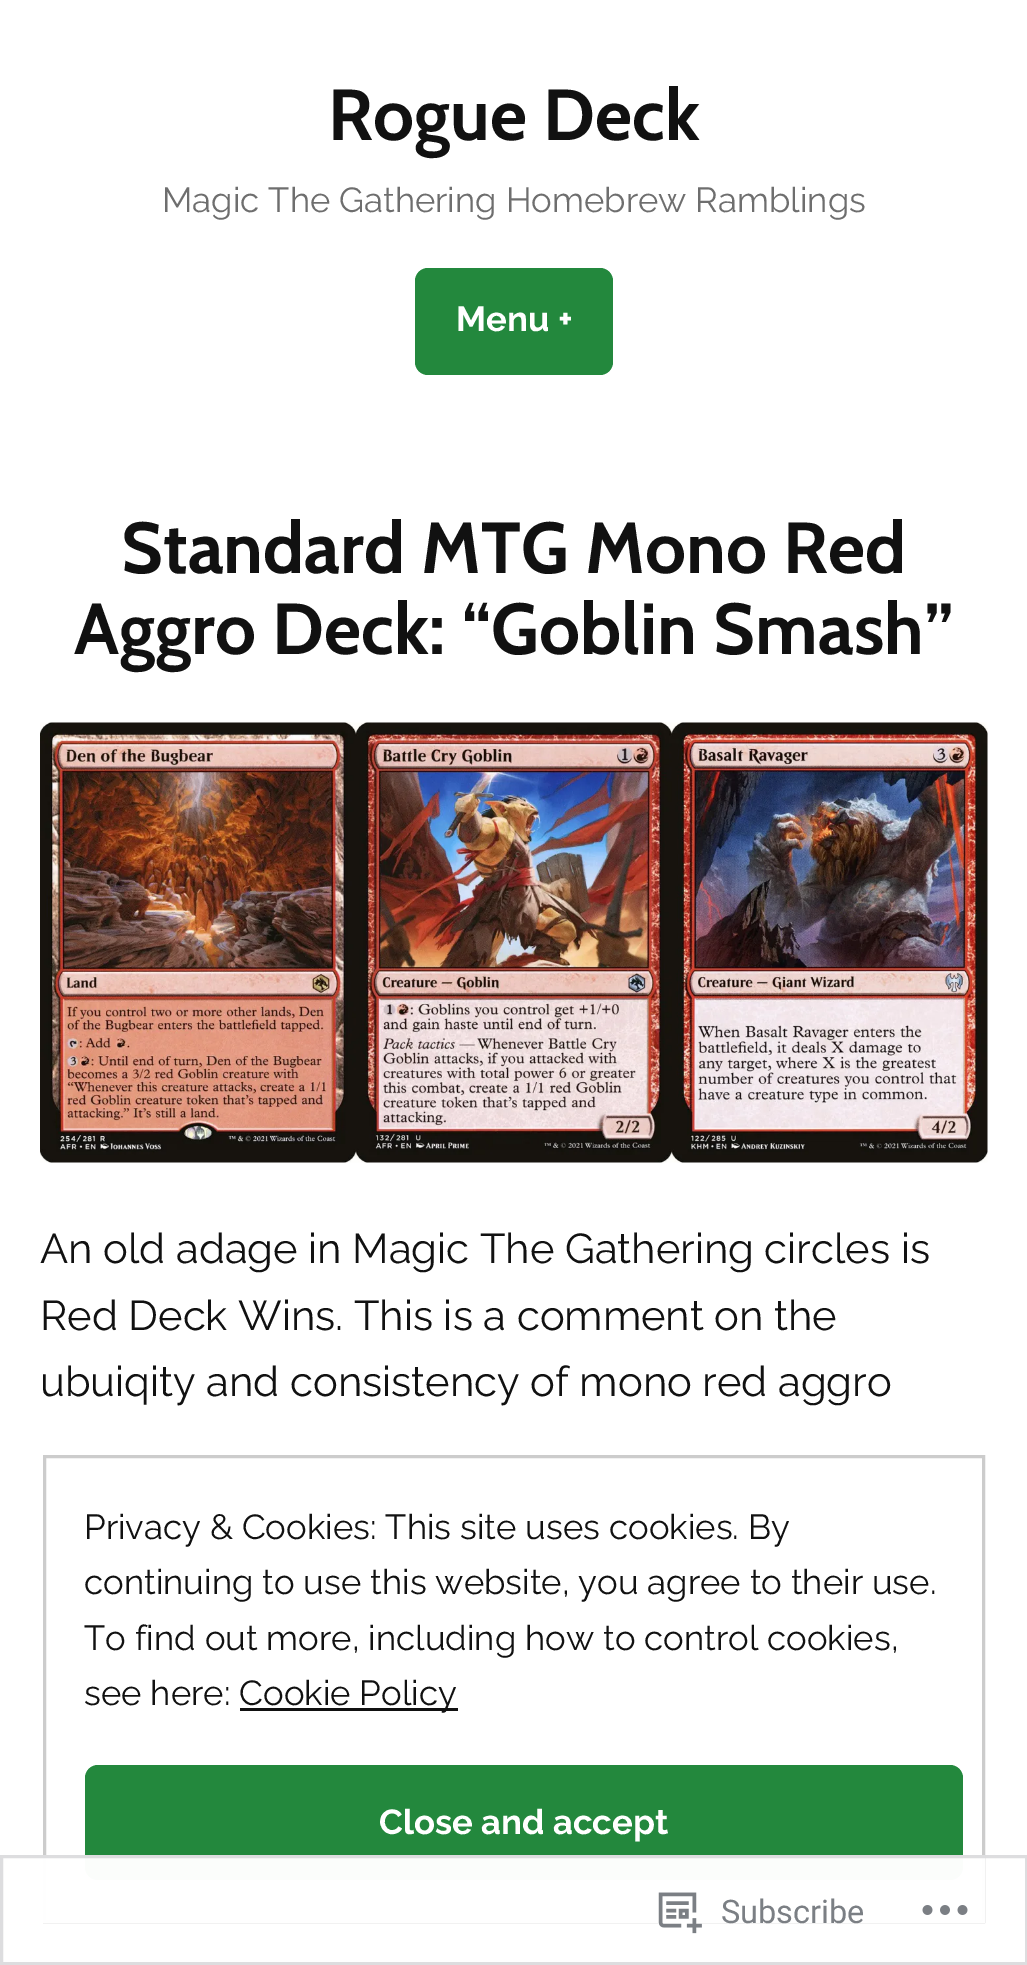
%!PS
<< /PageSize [1027 1965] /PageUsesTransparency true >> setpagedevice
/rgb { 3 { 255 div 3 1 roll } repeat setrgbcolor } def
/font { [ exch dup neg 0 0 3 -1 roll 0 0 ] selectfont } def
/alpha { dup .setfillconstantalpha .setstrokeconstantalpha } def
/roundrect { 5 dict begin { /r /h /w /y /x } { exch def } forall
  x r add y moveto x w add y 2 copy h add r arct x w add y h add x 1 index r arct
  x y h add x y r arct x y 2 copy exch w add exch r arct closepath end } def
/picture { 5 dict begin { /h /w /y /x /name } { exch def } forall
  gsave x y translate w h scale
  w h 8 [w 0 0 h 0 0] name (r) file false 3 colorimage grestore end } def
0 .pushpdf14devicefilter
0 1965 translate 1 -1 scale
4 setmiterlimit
255 255 255 rgb
0 0 1027 1965 rectfill
35 136 61 rgb
415 268 198 107 13 roundrect fill
(img/1.rgb) 40 722 948 441 picture
204 204 204 rgb
3 setlinewidth
44.5 1456.5 939 465 rectstroke
17 17 17 rgb
240 1708 218 3 rectfill
35 136 61 rgb
85 1765 878 115 13 roundrect fill
0.98 alpha
255 255 255 rgb
43 1855 942 68 rectfill
220 220 222 rgb
1.5 1856.5 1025 107 rectstroke
1 alpha
(img/2.rgb) 658 1892 44 42 picture
(img/3.rgb) 922 1905 46 10 picture
/Cabin-Bold 72 font
17 17 17 rgb
328 140 moveto (Rogue Deck) show
/Raleway-Regular 34.75 font
110 110 110 rgb
162 212 moveto (Magic The Gathering Homebrew Ramblings) show
/Raleway-Bold 34.75 font
255 255 255 rgb
456 331 moveto (Menu +) show
/Cabin-Bold 72 font
17 17 17 rgb
121 573 moveto (Standard MTG Mono Red) show
74 654 moveto (Aggro Deck: “Goblin Smash”) show
/Raleway-Regular 41.7 font
[
  [(An old adage in Magic The Gathering circles is) 40 1263]
  [(Red Deck Wins. This is a comment on the) 40 1330]
  [(ubuiqity and consistency of mono red aggro) 40 1396]
] { aload pop moveto show } forall
/Raleway-Regular 34.75 font
[
  [(Privacy & Cookies: This site uses cookies. By) 84 1539]
  [(continuing to use this website, you agree to their use.) 84 1594]
  [(To find out more, including how to control cookies,) 84 1650]
  [(see here:) 84 1705]
  [(Cookie Policy) 239 1705]
] { aload pop moveto show } forall
/Raleway-Bold 34.75 font
255 255 255 rgb
379 1834 moveto (Close and accept) show
/Roboto-Regular 32.5 font
123 127 132 rgb
721 1923 moveto (Subscribe) show
.poppdf14devicefilter showpage
